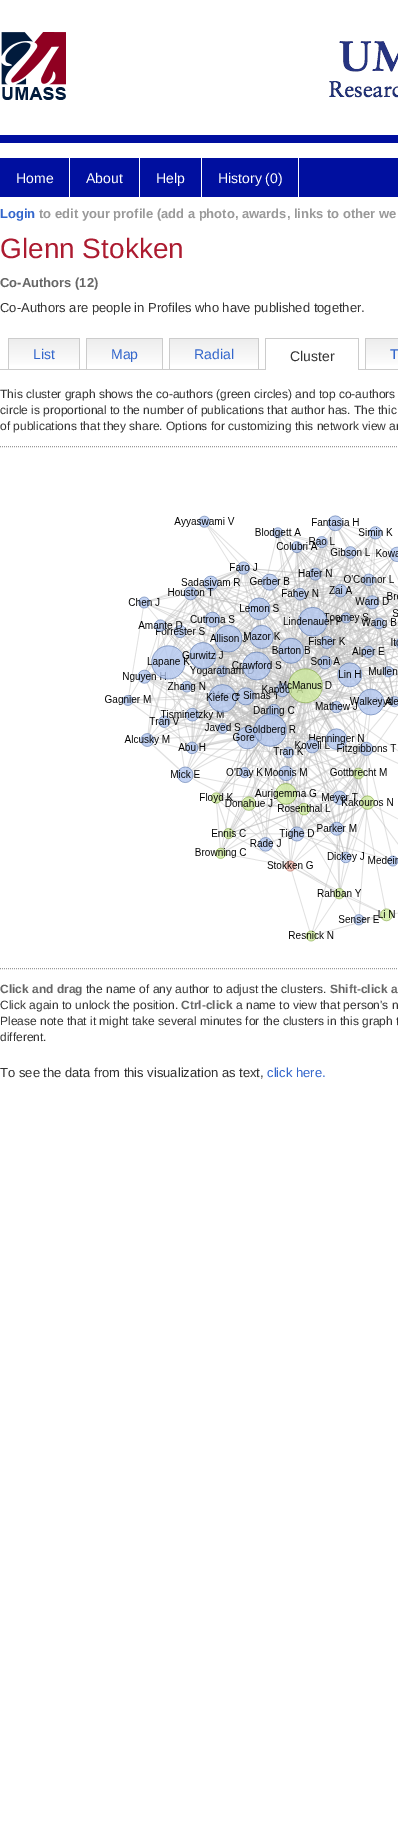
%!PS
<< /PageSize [398 1821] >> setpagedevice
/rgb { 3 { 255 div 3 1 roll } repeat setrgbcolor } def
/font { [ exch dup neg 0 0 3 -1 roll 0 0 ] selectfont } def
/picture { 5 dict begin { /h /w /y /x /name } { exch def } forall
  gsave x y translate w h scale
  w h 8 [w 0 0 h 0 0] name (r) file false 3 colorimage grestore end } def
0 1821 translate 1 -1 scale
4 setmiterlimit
255 255 255 rgb
0 0 398 1821 rectfill
0 15 159 rgb
0 135 398 8 rectfill
(img/1.rgb) 1 32 397 68 picture
[
  [0 158 398 39 0 15 159]
  [69 158 1 39 255 255 255]
  [139 158 1 39 255 255 255]
  [201 158 1 39 255 255 255]
  [298 158 1 39 255 255 255]
] { aload pop rgb rectfill } forall
gsave 9 339 moveto 79 339 lineto 79 365 lineto 9 365 lineto closepath clip newpath
<< /ShadingType 2 /ColorSpace /DeviceRGB /Coords [44 339 44 369] /Extend [true true] /Function << /FunctionType 2 /Domain [0 1] /C0 [0.929 0.929 0.929] /C1 [1 1 1] /N 1 >> >> shfill grestore
[
  [8 338 72 1 204 204 204]
  [79 338 1 31 204 204 204]
  [8 338 1 31 204 204 204]
] { aload pop rgb rectfill } forall
gsave 87 339 moveto 162 339 lineto 162 365 lineto 87 365 lineto closepath clip newpath
<< /ShadingType 2 /ColorSpace /DeviceRGB /Coords [125 339 125 369] /Extend [true true] /Function << /FunctionType 2 /Domain [0 1] /C0 [0.929 0.929 0.929] /C1 [1 1 1] /N 1 >> >> shfill grestore
[
  [86 338 77 1 204 204 204]
  [162 338 1 31 204 204 204]
  [86 338 1 31 204 204 204]
] { aload pop rgb rectfill } forall
gsave 170 339 moveto 258 339 lineto 258 365 lineto 170 365 lineto closepath clip newpath
<< /ShadingType 2 /ColorSpace /DeviceRGB /Coords [214 339 214 369] /Extend [true true] /Function << /FunctionType 2 /Domain [0 1] /C0 [0.929 0.929 0.929] /C1 [1 1 1] /N 1 >> >> shfill grestore
[
  [169 338 90 1 204 204 204]
  [258 338 1 31 204 204 204]
  [169 338 1 31 204 204 204]
  [0 369 398 1 204 204 204]
  [266 369 92 1 255 255 255]
  [265 338 94 1 204 204 204]
  [358 338 1 32 204 204 204]
  [265 338 1 32 204 204 204]
] { aload pop rgb rectfill } forall
gsave 366 339 moveto 398 339 lineto 398 365 lineto 366 365 lineto closepath clip newpath
<< /ShadingType 2 /ColorSpace /DeviceRGB /Coords [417 339 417 369] /Extend [true true] /Function << /FunctionType 2 /Domain [0 1] /C0 [0.929 0.929 0.929] /C1 [1 1 1] /N 1 >> >> shfill grestore
365 338 33 1 rectfill
365 338 1 31 rectfill
153 153 153 rgb
[1 1] 0 setdash
0 446.5 moveto 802 446.5 lineto stroke
(img/2.rgb) 105 515 293 427 picture
0 968.5 moveto 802 968.5 lineto stroke
/LiberationSans-Regular 14 font
255 255 255 rgb
[
  [(Home) 16 183]
  [(About) 86 183]
  [(Help) 156 183]
  [(History \(0\)) 218 183]
] { aload pop moveto show } forall
/LiberationSans-Bold 13 font
51 102 204 rgb
0 218 moveto (Login) show
153 153 153 rgb
39 218 moveto (to edit your profile \(add a photo, awards, links to other we) show
/LiberationSans-Regular 28 font
172 27 48 rgb
0 258 moveto (Glenn Stokken) show
/LiberationSans-Bold 13 font
102 102 102 rgb
0 287 moveto (Co-Authors \(12\)) show
/LiberationSans-Regular 13 font
51 51 51 rgb
0 312 moveto (Co-Authors are people in Profiles who have published together.) show
/LiberationSans-Regular 14 font
51 102 204 rgb
[
  [(List) 33 359]
  [(Map) 111 359]
  [(Radial) 194 359]
] { aload pop moveto show } forall
51 51 51 rgb
290 361 moveto (Cluster) show
51 102 204 rgb
390 359 moveto (T) show
/LiberationSans-Regular 12 font
51 51 51 rgb
[
  [(This cluster graph shows the co-authors \(green circles\) and top co-authors) 0 398]
  [(circle is proportional to the number of publications that author has. The thic) 0 414]
  [(of publications that they share. Options for customizing this network view ar) 0 430]
] { aload pop moveto show } forall
/LiberationSans-Bold 12 font
102 102 102 rgb
0 993 moveto (Click and drag) show
/LiberationSans-Regular 12 font
51 51 51 rgb
86 993 moveto (the name of any author to adjust the clusters.) show
/LiberationSans-Bold 12 font
102 102 102 rgb
330 993 moveto (Shift-click a) show
/LiberationSans-Regular 12 font
51 51 51 rgb
0 1009 moveto (Click again to unlock the position.) show
/LiberationSans-Bold 12 font
102 102 102 rgb
181 1009 moveto (Ctrl-click) show
/LiberationSans-Regular 12 font
51 51 51 rgb
[
  [(a name to view that person's n) 236 1009]
  [(Please note that it might take several minutes for the clusters in this graph t) 0 1025]
  [(different.) 0 1041]
] { aload pop moveto show } forall
/LiberationSans-Regular 13 font
0 1077 moveto (To see the data from this visualization as text,) show
51 102 204 rgb
267 1077 moveto (click here.) show
showpage
